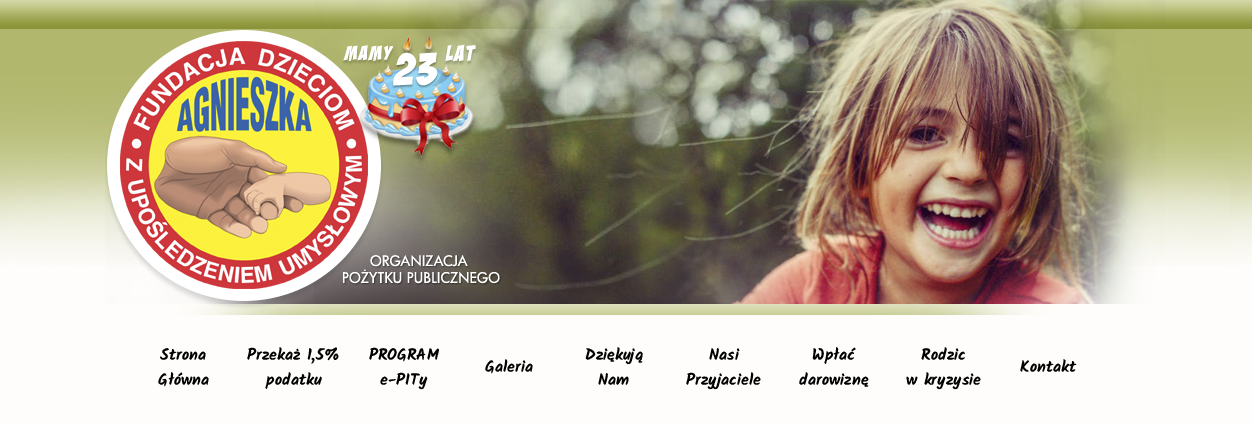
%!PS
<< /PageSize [1252 424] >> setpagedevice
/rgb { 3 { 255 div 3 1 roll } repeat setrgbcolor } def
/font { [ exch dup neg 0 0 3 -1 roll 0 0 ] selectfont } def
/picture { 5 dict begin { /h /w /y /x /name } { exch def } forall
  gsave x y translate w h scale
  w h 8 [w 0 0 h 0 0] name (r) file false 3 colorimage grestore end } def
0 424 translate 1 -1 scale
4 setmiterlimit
254 253 251 rgb
0 0 1252 424 rectfill
(img/1.rgb) 0 0 1252 266 picture
(img/2.rgb) 105 0 1060 315 picture
/Kalam-Bold 16 font
0 0 0 rgb
[
  [(Strona) 160 360]
  [(Główna) 158 385]
  [(Przekaż 1,5%) 247 360]
  [(podatku) 266 385]
  [(PROGRAM) 369 360]
  [(e-PITy) 380 385]
  [(Galeria) 485 372]
  [(Dziękują) 585 360]
  [(Nam) 598 385]
  [(Nasi) 709 360]
  [(Przyjaciele) 686 385]
  [(Wpłać) 812 360]
  [(darowiznę) 799 385]
  [(Rodzic) 921 360]
  [(w kryzysie) 906 385]
  [(Kontakt) 1020 372]
] { aload pop moveto show } forall
showpage
